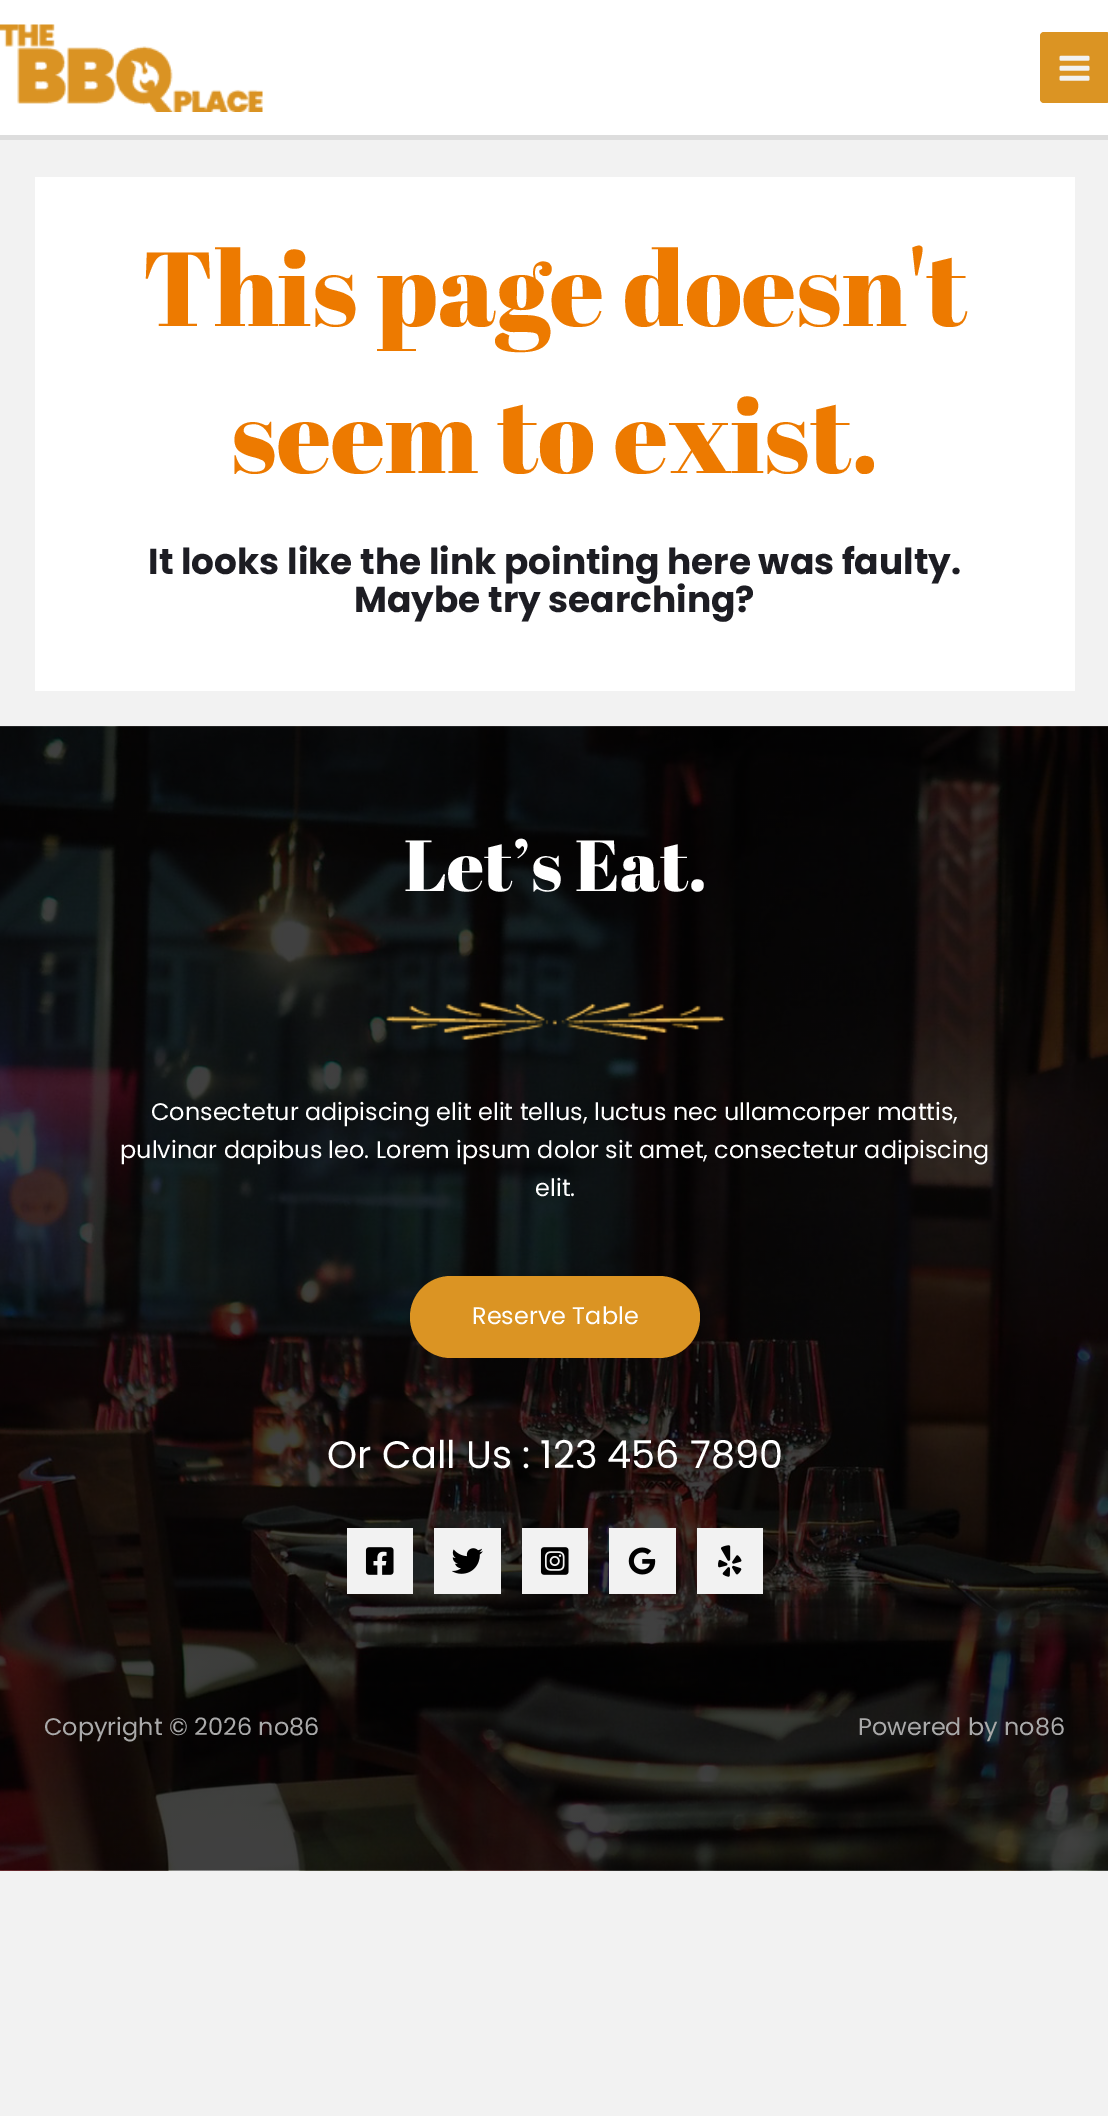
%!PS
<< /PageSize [1108 2116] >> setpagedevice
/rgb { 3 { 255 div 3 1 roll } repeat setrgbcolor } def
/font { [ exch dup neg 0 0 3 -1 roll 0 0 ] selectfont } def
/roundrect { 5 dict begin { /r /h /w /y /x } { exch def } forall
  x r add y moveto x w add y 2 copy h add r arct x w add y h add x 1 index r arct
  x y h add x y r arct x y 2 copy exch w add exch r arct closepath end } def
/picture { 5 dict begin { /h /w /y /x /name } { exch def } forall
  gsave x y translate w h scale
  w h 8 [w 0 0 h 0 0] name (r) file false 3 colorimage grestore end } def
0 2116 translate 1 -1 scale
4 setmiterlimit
242 242 242 rgb
0 0 1108 2116 rectfill
255 255 255 rgb
0 0 1108 135 rectfill
221 221 221 rgb
0 135 1108 5 rectfill
(img/1.rgb) 0 24 263 88 picture
219 148 35 rgb
1040 32 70 71 4 roundrect fill
(img/2.rgb) 1059 55 31 26 picture
255 255 255 rgb
35 177 1040 514 rectfill
(img/3.rgb) 0 726 1108 1145 picture
(img/4.rgb) 386 1002 339 40 picture
219 148 35 rgb
410 1276 290 82 41 roundrect fill
242 242 242 rgb
347 1528 66 66 rectfill
(img/5.rgb) 365 1547 29 28 picture
434 1528 67 66 rectfill
(img/6.rgb) 452 1548 31 26 picture
522 1528 66 66 rectfill
(img/7.rgb) 540 1547 29 28 picture
609 1528 67 66 rectfill
(img/8.rgb) 628 1547 28 28 picture
697 1528 66 66 rectfill
(img/9.rgb) 718 1545 24 32 picture
/AbrilFatface-Regular 105 font
237 122 0 rgb
142 326 moveto (This page doesn't) show
231 473 moveto (seem to exist.) show
/Poppins-Bold 35.9 font
29 29 35 rgb
148 574 moveto (It looks like the link pointing here was faulty.) show
354 612 moveto (Maybe try searching?) show
/AbrilFatface-Regular 72 font
255 255 255 rgb
404 891 moveto (Let’s Eat.) show
/Poppins-Regular 23.95 font
[
  [(Consectetur adipiscing elit elit tellus, luctus nec ullamcorper mattis,) 151 1120]
  [(pulvinar dapibus leo. Lorem ipsum dolor sit amet, consectetur adipiscing) 120 1158]
  [(elit.) 535 1196]
  [(Reserve Table) 472 1324]
] { aload pop moveto show } forall
/Poppins-Regular 38.25 font
327 1468 moveto (Or Call Us : 123 456 7890) show
/Poppins-Regular 23.95 font
170 170 170 rgb
44 1735 moveto (Copyright © 2026 no86) show
858 1735 moveto (Powered by no86) show
showpage
